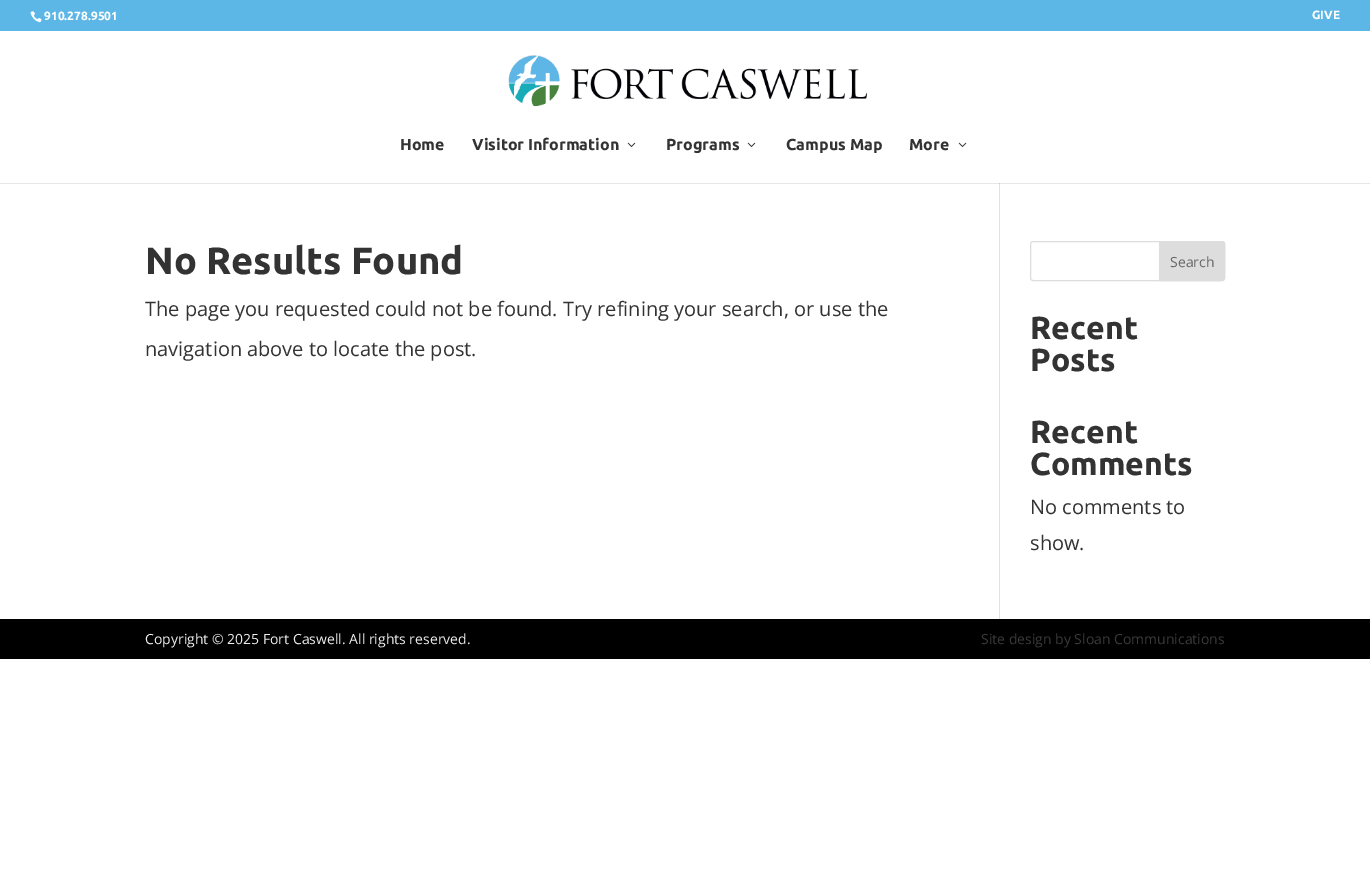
%!PS
<< /PageSize [1370 883] >> setpagedevice
/rgb { 3 { 255 div 3 1 roll } repeat setrgbcolor } def
/font { [ exch dup neg 0 0 3 -1 roll 0 0 ] selectfont } def
/roundrect { 5 dict begin { /r /h /w /y /x } { exch def } forall
  x r add y moveto x w add y 2 copy h add r arct x w add y h add x 1 index r arct
  x y h add x y r arct x y 2 copy exch w add exch r arct closepath end } def
/picture { 5 dict begin { /h /w /y /x /name } { exch def } forall
  gsave x y translate w h scale
  w h 8 [w 0 0 h 0 0] name (r) file false 3 colorimage grestore end } def
0 883 translate 1 -1 scale
4 setmiterlimit
255 255 255 rgb
0 0 1370 883 rectfill
230 230 230 rgb
0 183 1370 1 rectfill
92 183 231 rgb
0 0 1370 31 rectfill
(img/1.rgb) 30 11 12 12 picture
(img/2.rgb) 508 55 359 52 picture
(img/3.rgb) 627 142 9 5 picture
(img/3.rgb) 747 142 9 5 picture
(img/3.rgb) 958 142 9 5 picture
226 226 226 rgb
999 183 1 436 rectfill
203 203 203 rgb
999 183 1 1 rectfill
221 221 221 rgb
1030.5 241.5 194 39 2.5 roundrect stroke
1159.5 241.5 moveto 1222 241.5 lineto 1223.5 241.5 1224.5 242.5 1224.5 244 curveto 1224.5 278 lineto 1224.5 279.5 1223.5 280.5 1222 280.5 curveto 1159.5 280.5 lineto closepath gsave fill grestore
stroke
0 0 0 rgb
0 619 1370 40 rectfill
/Ubuntu-Bold 12 font
255 255 255 rgb
44 20 moveto (910.278.9501) show
1312 19 moveto (GIVE) show
/Ubuntu-Bold 16 font
51 51 51 rgb
[
  [(Home) 400 150]
  [(Visitor Information) 472 150]
  [(Programs) 666 150]
  [(Campus Map) 786 150]
  [(More) 909 150]
] { aload pop moveto show } forall
/Ubuntu-Bold 38 font
145 274 moveto (No Results Found) show
/OpenSans-Regular 20 font
145 316 moveto (The page you requested could not be found. Try refining your search, or use the) show
145 356 moveto (navigation above to locate the post.) show
/OpenSans-Regular 14 font
102 102 102 rgb
1170 267 moveto (Search) show
/Ubuntu-Bold 32 font
51 51 51 rgb
[
  [(Recent) 1030 339]
  [(Posts) 1030 371]
  [(Recent) 1030 443]
  [(Comments) 1030 475]
] { aload pop moveto show } forall
/OpenSans-Regular 20 font
1030 514 moveto (No comments to) show
1030 550 moveto (show.) show
/OpenSans-Regular 14 font
238 238 238 rgb
145 644 moveto (Copyright © 2025 Fort Caswell. All rights reserved.) show
58 58 58 rgb
981 644 moveto (Site design by Sloan Communications) show
showpage
